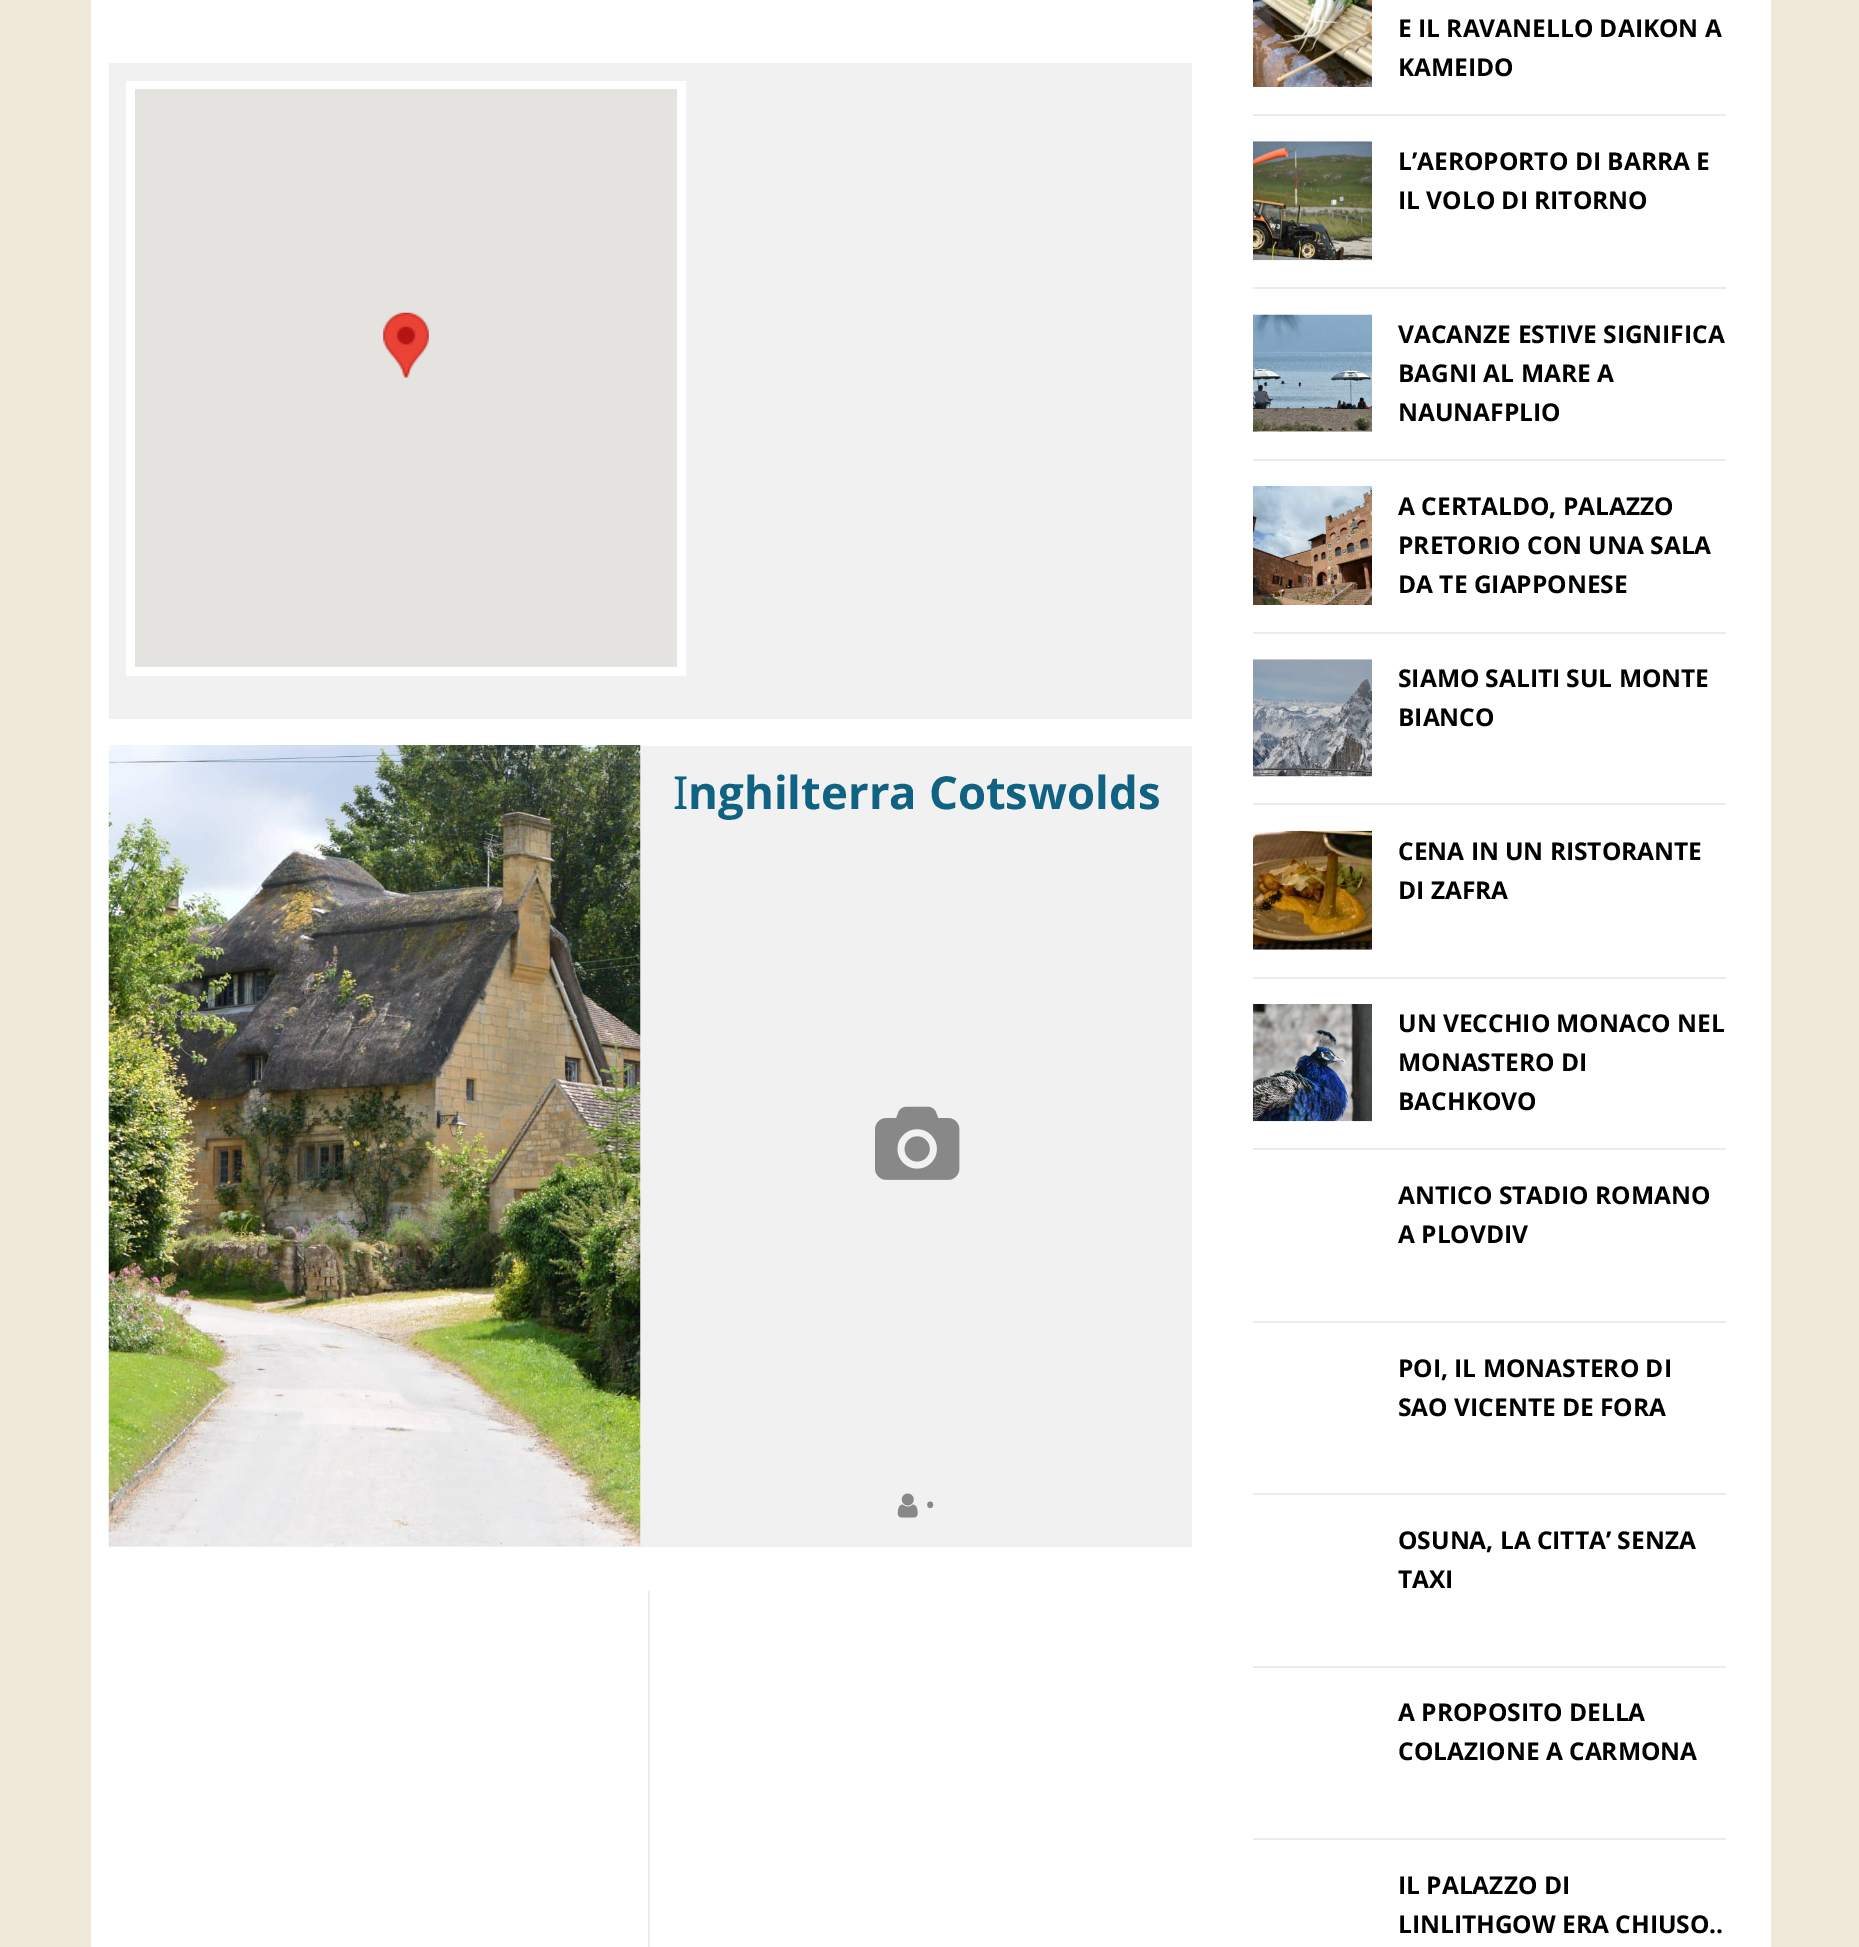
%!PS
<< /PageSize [1859 1947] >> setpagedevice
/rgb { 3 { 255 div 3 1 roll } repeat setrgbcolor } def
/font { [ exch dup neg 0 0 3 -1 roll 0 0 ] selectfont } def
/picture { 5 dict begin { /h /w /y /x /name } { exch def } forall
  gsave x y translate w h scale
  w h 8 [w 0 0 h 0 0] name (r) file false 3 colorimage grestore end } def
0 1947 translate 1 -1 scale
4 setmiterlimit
239 231 216 rgb
0 0 1859 1947 rectfill
255 255 255 rgb
91 0 1680 1947 rectfill
241 241 241 rgb
109 63 1083 656 rectfill
255 255 255 rgb
9 setlinewidth
130.5 85.5 551 586 rectstroke
229 227 223 rgb
135 89 542 578 rectfill
(img/1.rgb) 383 312 46 66 picture
241 241 241 rgb
109 746 1083 801 rectfill
(img/2.rgb) 108 745 533 802 picture
(img/3.rgb) 875 1106 85 74 picture
(img/4.rgb) 897 1493 21 25 picture
235 235 235 rgb
648 1591 2 356 rectfill
1253 114 473 2 rectfill
(img/5.rgb) 1253 0 119 87 picture
1253 287 473 2 rectfill
(img/6.rgb) 1253 141 119 120 picture
1253 459 473 2 rectfill
(img/7.rgb) 1253 314 119 118 picture
1253 632 473 2 rectfill
(img/8.rgb) 1253 486 119 119 picture
1253 803 473 2 rectfill
(img/9.rgb) 1253 659 119 118 picture
1253 977 473 2 rectfill
(img/10.rgb) 1253 830 119 120 picture
1253 1148 473 2 rectfill
(img/11.rgb) 1253 1004 119 118 picture
[
  [1253 1321 473 2 235 235 235]
  [1253 1493 473 2 235 235 235]
  [1253 1666 473 2 235 235 235]
  [1253 1838 473 2 235 235 235]
] { aload pop rgb rectfill } forall
/NotoSans-Regular 45.5 font
15 98 129 rgb
673 809 moveto (I) show
/OpenSans-Bold 45.5 font
688 809 moveto (nghilterra Cotswolds) show
/OpenSans-Regular 28 font
136 136 136 rgb
925 1515 moveto (•) show
/OpenSans-Bold 24.5 font
0 0 0 rgb
[
  [(E IL RAVANELLO DAIKON A) 1398 37]
  [(KAMEIDO) 1398 76]
  [(L’AEROPORTO DI BARRA E) 1398 170]
  [(IL VOLO DI RITORNO) 1398 209]
  [(VACANZE ESTIVE SIGNIFICA) 1398 343]
  [(BAGNI AL MARE A) 1398 382]
  [(NAUNAFPLIO) 1398 421]
  [(A CERTALDO, PALAZZO) 1398 515]
  [(PRETORIO CON UNA SALA) 1398 554]
  [(DA TE GIAPPONESE) 1398 593]
  [(SIAMO SALITI SUL MONTE) 1398 687]
  [(BIANCO) 1398 726]
  [(CENA IN UN RISTORANTE) 1398 860]
  [(DI ZAFRA) 1398 899]
  [(UN VECCHIO MONACO NEL) 1398 1032]
  [(MONASTERO DI) 1398 1071]
  [(BACHKOVO) 1398 1110]
  [(ANTICO STADIO ROMANO) 1398 1204]
  [(A PLOVDIV) 1398 1243]
  [(POI, IL MONASTERO DI) 1398 1377]
  [(SAO VICENTE DE FORA) 1398 1416]
  [(OSUNA, LA CITTA’ SENZA) 1398 1549]
  [(TAXI) 1398 1588]
  [(A PROPOSITO DELLA) 1398 1721]
  [(COLAZIONE A CARMONA) 1398 1760]
  [(IL PALAZZO DI) 1398 1894]
  [(LINLITHGOW ERA CHIUSO..) 1398 1933]
] { aload pop moveto show } forall
showpage
